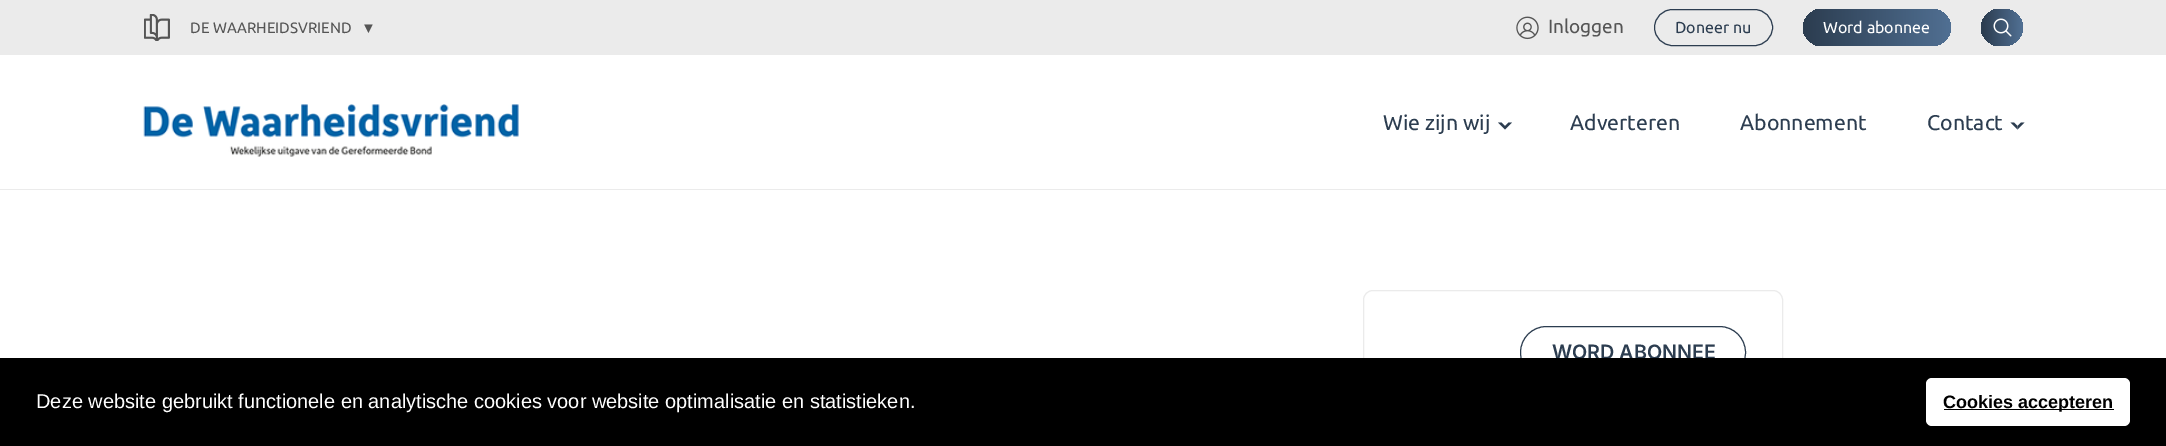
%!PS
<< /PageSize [2166 446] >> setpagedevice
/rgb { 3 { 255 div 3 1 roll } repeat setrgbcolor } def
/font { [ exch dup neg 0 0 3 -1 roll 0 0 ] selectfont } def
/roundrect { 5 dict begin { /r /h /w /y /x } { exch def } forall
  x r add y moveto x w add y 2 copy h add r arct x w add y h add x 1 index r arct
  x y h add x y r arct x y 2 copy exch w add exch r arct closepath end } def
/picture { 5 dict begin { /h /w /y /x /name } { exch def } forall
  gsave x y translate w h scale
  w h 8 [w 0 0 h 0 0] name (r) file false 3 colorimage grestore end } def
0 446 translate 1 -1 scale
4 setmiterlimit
255 255 255 rgb
0 0 2166 446 rectfill
235 235 235 rgb
0 0 2166 55 rectfill
(img/1.rgb) 144 14 26 27 picture
(img/2.rgb) 1516 16 23 24 picture
44 61 80 rgb
1654.5 9.5 118 36 18 roundrect stroke
gsave
1803 9 148 37 18.5 roundrect clip newpath
gsave 1803 21 moveto 1804 21 lineto 1804 34 lineto 1803 34 lineto closepath clip newpath
<< /ShadingType 2 /ColorSpace /DeviceRGB /Coords [1511 28 1804 27] /Extend [true true] /Function << /FunctionType 3 /Domain [0 1] /Functions [<< /FunctionType 2 /Domain [0 1] /C0 [0.173 0.239 0.314] /C1 [0.314 0.435 0.573] /N 1 >> << /FunctionType 2 /Domain [0 1] /C0 [0.314 0.435 0.573] /C1 [0.173 0.239 0.314] /N 1 >>] /Bounds [0.5] /Encode [0 1 0 1] >> >> shfill grestore
gsave 1804 9 moveto 1932.5 9 lineto 1942.5 9 1951 17.5 1951 27.5 curveto 1951 37.5 1942.5 46 1932.5 46 curveto 1804 46 lineto closepath clip newpath
<< /ShadingType 2 /ColorSpace /DeviceRGB /Coords [1804 28 2096 27] /Extend [true true] /Function << /FunctionType 3 /Domain [0 1] /Functions [<< /FunctionType 2 /Domain [0 1] /C0 [0.173 0.239 0.314] /C1 [0.314 0.435 0.573] /N 1 >> << /FunctionType 2 /Domain [0 1] /C0 [0.314 0.435 0.573] /C1 [0.173 0.239 0.314] /N 1 >>] /Bounds [0.5] /Encode [0 1 0 1] >> >> shfill grestore
grestore
239 239 239 rgb
1981 9 42 37 18.5 roundrect fill
gsave
1981 9 42 37 18.5 roundrect clip newpath
gsave 1981 19 moveto 1983 19 lineto 1983 36 lineto 1981 36 lineto closepath clip newpath
<< /ShadingType 2 /ColorSpace /DeviceRGB /Coords [1905 28 1983 27] /Extend [true true] /Function << /FunctionType 3 /Domain [0 1] /Functions [<< /FunctionType 2 /Domain [0 1] /C0 [0.173 0.239 0.314] /C1 [0.314 0.435 0.573] /N 1 >> << /FunctionType 2 /Domain [0 1] /C0 [0.314 0.435 0.573] /C1 [0.173 0.239 0.314] /N 1 >>] /Bounds [0.5] /Encode [0 1 0 1] >> >> shfill grestore
gsave 1983 9 moveto 2004.5 9 lineto 2014.5 9 2023 17.5 2023 27.5 curveto 2023 37.5 2014.5 46 2004.5 46 curveto 1983 46 lineto closepath clip newpath
<< /ShadingType 2 /ColorSpace /DeviceRGB /Coords [1983 28 2060 27] /Extend [true true] /Function << /FunctionType 3 /Domain [0 1] /Functions [<< /FunctionType 2 /Domain [0 1] /C0 [0.173 0.239 0.314] /C1 [0.314 0.435 0.573] /N 1 >> << /FunctionType 2 /Domain [0 1] /C0 [0.314 0.435 0.573] /C1 [0.173 0.239 0.314] /N 1 >>] /Bounds [0.5] /Encode [0 1 0 1] >> >> shfill grestore
grestore
(img/3.rgb) 1993 18 19 19 picture
235 235 235 rgb
0 189 2166 1 rectfill
(img/4.rgb) 143 104 376 53 picture
44 61 80 rgb
1505 129.5 moveto 1498 122.5 lineto 1501.5 122.5 lineto 1505 126 lineto closepath 1512 122.5 moveto 1505 129.5 lineto 1505 126 lineto 1508.5 122.5 lineto closepath fill
2017.5 129.5 moveto 2010.5 122.5 lineto 2014 122.5 lineto 2017.5 126 lineto closepath fill
2024.5 122.5 moveto 2017.5 129.5 lineto 2017.5 126 lineto 2021 122.5 lineto closepath fill
235 235 235 rgb
1363.5 290.5 419 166 9.5 roundrect stroke
44 61 80 rgb
1520.5 326.5 225 52 26 roundrect stroke
/Ubuntu-Regular 15 font
85 85 85 rgb
190 33 moveto (DE WAARHEIDSVRIEND) show
/LiberationSans-Regular 15 font
361 33 moveto (▼) show
/Ubuntu-Regular 19 font
1548 33 moveto (Inloggen) show
/Ubuntu-Regular 16 font
44 61 80 rgb
1675 33 moveto (Doneer nu) show
255 255 255 rgb
1823 33 moveto (Word abonnee) show
/Ubuntu-Regular 21.25 font
44 61 80 rgb
[
  [(Wie zijn wij) 1383 130]
  [(Adverteren) 1570 130]
  [(Abonnement) 1740 130]
  [(Contact) 1927 130]
] { aload pop moveto show } forall
/Inter-SemiBold 19.75 font
1552 359 moveto (WORD ABONNEE) show
0 0 0 rgb
0 358 2166 88 rectfill
/LiberationSans-Regular 20 font
255 255 255 rgb
36 408 moveto (Deze website gebruikt functionele en analytische cookies voor website optimalisatie en statistieken.) show
1926 378 204 48 6 roundrect fill
0 0 0 rgb
1944 409 170 1 rectfill
/LiberationSans-Bold 18 font
1943 408 moveto (Cookies accepteren) show
showpage
